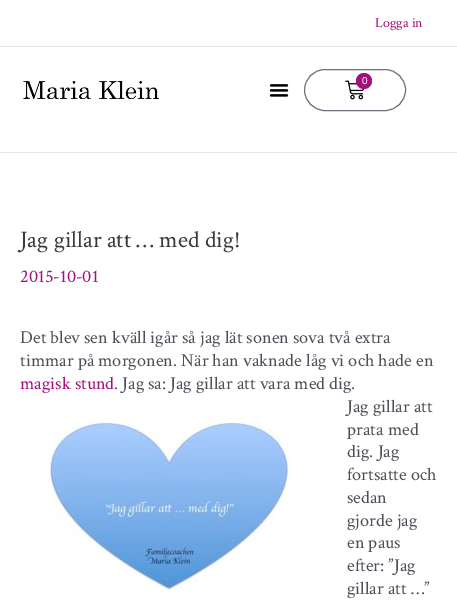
%!PS
<< /PageSize [457 601] >> setpagedevice
/rgb { 3 { 255 div 3 1 roll } repeat setrgbcolor } def
/font { [ exch dup neg 0 0 3 -1 roll 0 0 ] selectfont } def
/circle { newpath 0 360 arc closepath } def
/roundrect { 5 dict begin { /r /h /w /y /x } { exch def } forall
  x r add y moveto x w add y 2 copy h add r arct x w add y h add x 1 index r arct
  x y h add x y r arct x y 2 copy exch w add exch r arct closepath end } def
/picture { 5 dict begin { /h /w /y /x /name } { exch def } forall
  gsave x y translate w h scale
  w h 8 [w 0 0 h 0 0] name (r) file false 3 colorimage grestore end } def
0 601 translate 1 -1 scale
4 setmiterlimit
255 255 255 rgb
0 0 457 601 rectfill
231 231 231 rgb
0 46 457 1 rectfill
0 152 457 1 rectfill
(img/1.rgb) 23 81 136 18 picture
(img/2.rgb) 269 84 20 13 picture
105 114 125 rgb
304.5 69.5 101 41 20.5 roundrect stroke
(img/3.rgb) 345 80 20 20 picture
163 15 125 rgb
364 81 8 circle fill
(img/4.rgb) 39 414 253 177 picture
/CrimsonText-Regular 14 font
375 27 moveto (Logga in) show
/LiberationSans-Regular 10 font
255 255 255 rgb
362 84 moveto (0) show
/CrimsonText-Regular 23.75 font
58 58 58 rgb
20 247 moveto (Jag gillar att … med dig!) show
/CrimsonText-Regular 18.25 font
163 15 125 rgb
20 282 moveto (2015-10-01) show
75 79 88 rgb
20 343 moveto (Det blev sen kväll igår så jag lät sonen sova två extra) show
20 366 moveto (timmar på morgonen. När han vaknade låg vi och hade en) show
163 15 125 rgb
20 389 moveto (magisk stund) show
75 79 88 rgb
[
  [(. Jag sa: Jag gillar att vara med dig.) 114 389]
  [(Jag gillar att) 347 412]
  [(prata med) 347 435]
  [(dig. Jag) 347 457]
  [(fortsatte och) 347 480]
  [(sedan) 347 503]
  [(gjorde jag) 347 526]
  [(en paus) 347 548]
  [(efter: ”Jag) 347 571]
  [(gillar att …”) 347 594]
] { aload pop moveto show } forall
showpage
